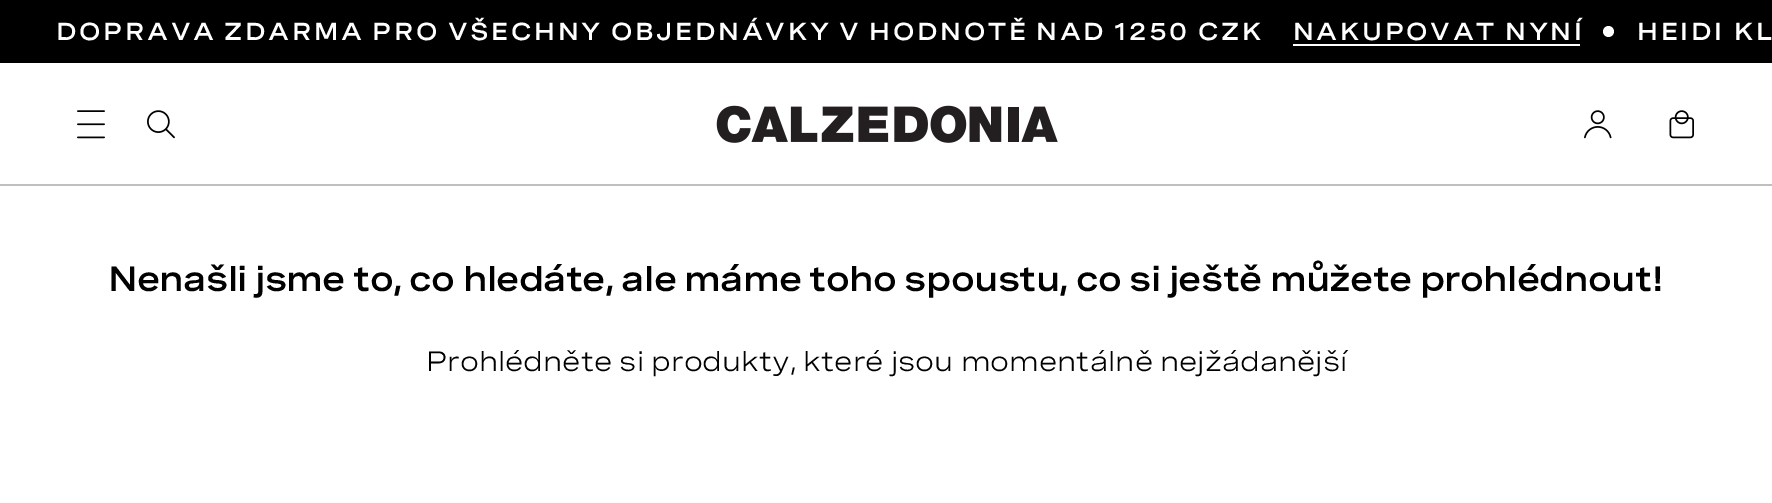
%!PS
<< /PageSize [1772 503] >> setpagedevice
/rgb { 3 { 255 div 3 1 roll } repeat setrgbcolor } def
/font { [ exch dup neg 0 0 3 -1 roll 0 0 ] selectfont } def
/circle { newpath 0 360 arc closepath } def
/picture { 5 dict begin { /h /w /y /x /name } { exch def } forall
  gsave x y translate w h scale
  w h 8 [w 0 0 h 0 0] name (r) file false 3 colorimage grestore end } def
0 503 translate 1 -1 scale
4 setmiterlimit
255 255 255 rgb
0 0 1772 503 rectfill
0 0 0 rgb
0 0 1772 63 rectfill
255 255 255 rgb
1293 44 287 2 rectfill
1608.5 31.5 5.5 circle fill
191 191 191 rgb
0 184 1772 2 rectfill
(img/1.rgb) 77 110 28 29 picture
(img/2.rgb) 147 110 28 29 picture
(img/3.rgb) 716 105 342 38 picture
(img/4.rgb) 1584 110 28 29 picture
(img/5.rgb) 1669 110 25 29 picture
/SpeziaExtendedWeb-SemiBold 24.5 font
255 255 255 rgb
56 40 moveto -1.5 0 32 2.62 0 (DOPRAVA ZDARMA PRO VŠECHNY OBJEDNÁVKY V HODNOTĚ NAD 1250 CZK) awidthshow
1293 40 moveto -1 0 32 2.62 0 (NAKUPOVAT NYNÍ) awidthshow
1637 40 moveto 2.62 0 (HEIDI KL) ashow
/SpeziaExtendedWeb-SemiBold 35 font
0 0 0 rgb
108 291 moveto -0.75 0 32 -0.7 0 (Nenašli jsme to, co hledáte, ale máme toho spoustu, co si ještě můžete prohlédnout!) awidthshow
/SpeziaExtendedWeb-Regular 28 font
426 371 moveto -0.75 0 32 (Prohlédněte si produkty, které jsou momentálně nejžádanější) widthshow
showpage
